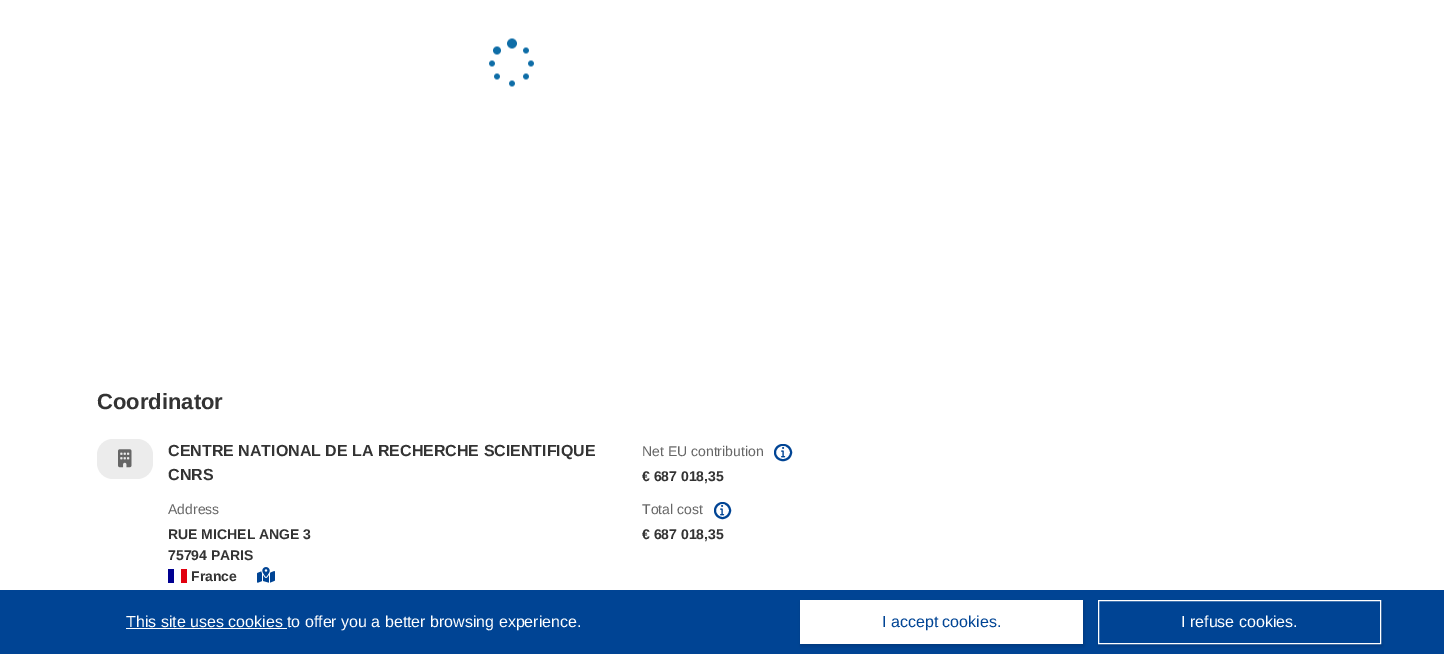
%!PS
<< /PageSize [1444 654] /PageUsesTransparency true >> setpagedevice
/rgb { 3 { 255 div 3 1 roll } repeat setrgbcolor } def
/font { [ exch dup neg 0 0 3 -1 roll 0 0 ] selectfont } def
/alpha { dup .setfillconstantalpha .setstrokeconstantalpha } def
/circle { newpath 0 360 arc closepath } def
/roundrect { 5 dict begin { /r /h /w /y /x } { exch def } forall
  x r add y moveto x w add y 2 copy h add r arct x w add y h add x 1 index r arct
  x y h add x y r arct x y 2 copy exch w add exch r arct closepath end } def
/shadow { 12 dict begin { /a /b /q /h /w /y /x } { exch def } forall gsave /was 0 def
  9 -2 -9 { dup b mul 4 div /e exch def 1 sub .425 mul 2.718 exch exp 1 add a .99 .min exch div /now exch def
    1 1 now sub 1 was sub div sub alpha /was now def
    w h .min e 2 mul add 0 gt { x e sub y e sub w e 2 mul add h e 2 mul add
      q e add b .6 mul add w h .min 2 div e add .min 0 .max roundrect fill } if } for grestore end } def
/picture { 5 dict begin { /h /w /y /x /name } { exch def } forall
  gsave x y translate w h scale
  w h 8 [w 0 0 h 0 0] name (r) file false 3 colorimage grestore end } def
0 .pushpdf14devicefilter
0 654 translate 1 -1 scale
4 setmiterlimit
255 255 255 rgb
0 0 1444 654 rectfill
(img/1.rgb) 489 38 45 49 picture
236 236 236 rgb
97 439 56 40 16 roundrect fill
(img/2.rgb) 118 449 14 19 picture
0 68 148 rgb
2 setlinewidth
775 445 16 15 7.5 roundrect stroke
(img/3.rgb) 781 446 5 12 picture
0 0 145 rgb
168 569 6 14 rectfill
225 0 15 rgb
181 569 6 14 rectfill
(img/4.rgb) 257 567 18 16 picture
0 68 148 rgb
722.5 510.5 7.5 circle stroke
(img/5.rgb) 720 504 5 12 picture
0 590 1444 64 rectfill
255 255 255 rgb
126 628 161 1 rectfill
0 0 0 rgb
801 602 283 44 0 1.5 0.15 shadow
255 255 255 rgb
800 600 283 44 rectfill
gsave
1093 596 moveto 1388 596 lineto 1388 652 lineto 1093 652 lineto closepath 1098 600 moveto 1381 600 lineto 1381 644 lineto 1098 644 lineto closepath eoclip newpath
0 0 0 rgb
1099 602 283 44 0 1.5 0.15 shadow
grestore
1 setlinewidth
1098.5 600.5 282 43 rectstroke
/LiberationSans-Bold 22 font
51 51 51 rgb
97 409 moveto (Coordinator) show
/LiberationSans-Bold 16 font
168 456 moveto (CENTRE NATIONAL DE LA RECHERCHE SCIENTIFIQUE) show
168 480 moveto (CNRS) show
/LiberationSans-Regular 14 font
102 102 102 rgb
642 456 moveto (Net EU contribution) show
/LiberationSans-Bold 14 font
51 51 51 rgb
642 481 moveto (€ 687 018,35) show
/LiberationSans-Regular 14 font
102 102 102 rgb
168 514 moveto (Address) show
/LiberationSans-Bold 14 font
51 51 51 rgb
[
  [(RUE MICHEL ANGE 3) 168 539]
  [(75794 PARIS) 168 560]
  [(France) 191 581]
] { aload pop moveto show } forall
/LiberationSans-Regular 14 font
102 102 102 rgb
642 514 moveto (Total cost) show
/LiberationSans-Bold 14 font
51 51 51 rgb
642 539 moveto (€ 687 018,35) show
/LiberationSans-Regular 16 font
255 255 255 rgb
126 627 moveto (This site uses cookies to offer you a better browsing experience.) show
0 68 148 rgb
882 627 moveto (I accept cookies.) show
255 255 255 rgb
1181 627 moveto (I refuse cookies.) show
.poppdf14devicefilter showpage
